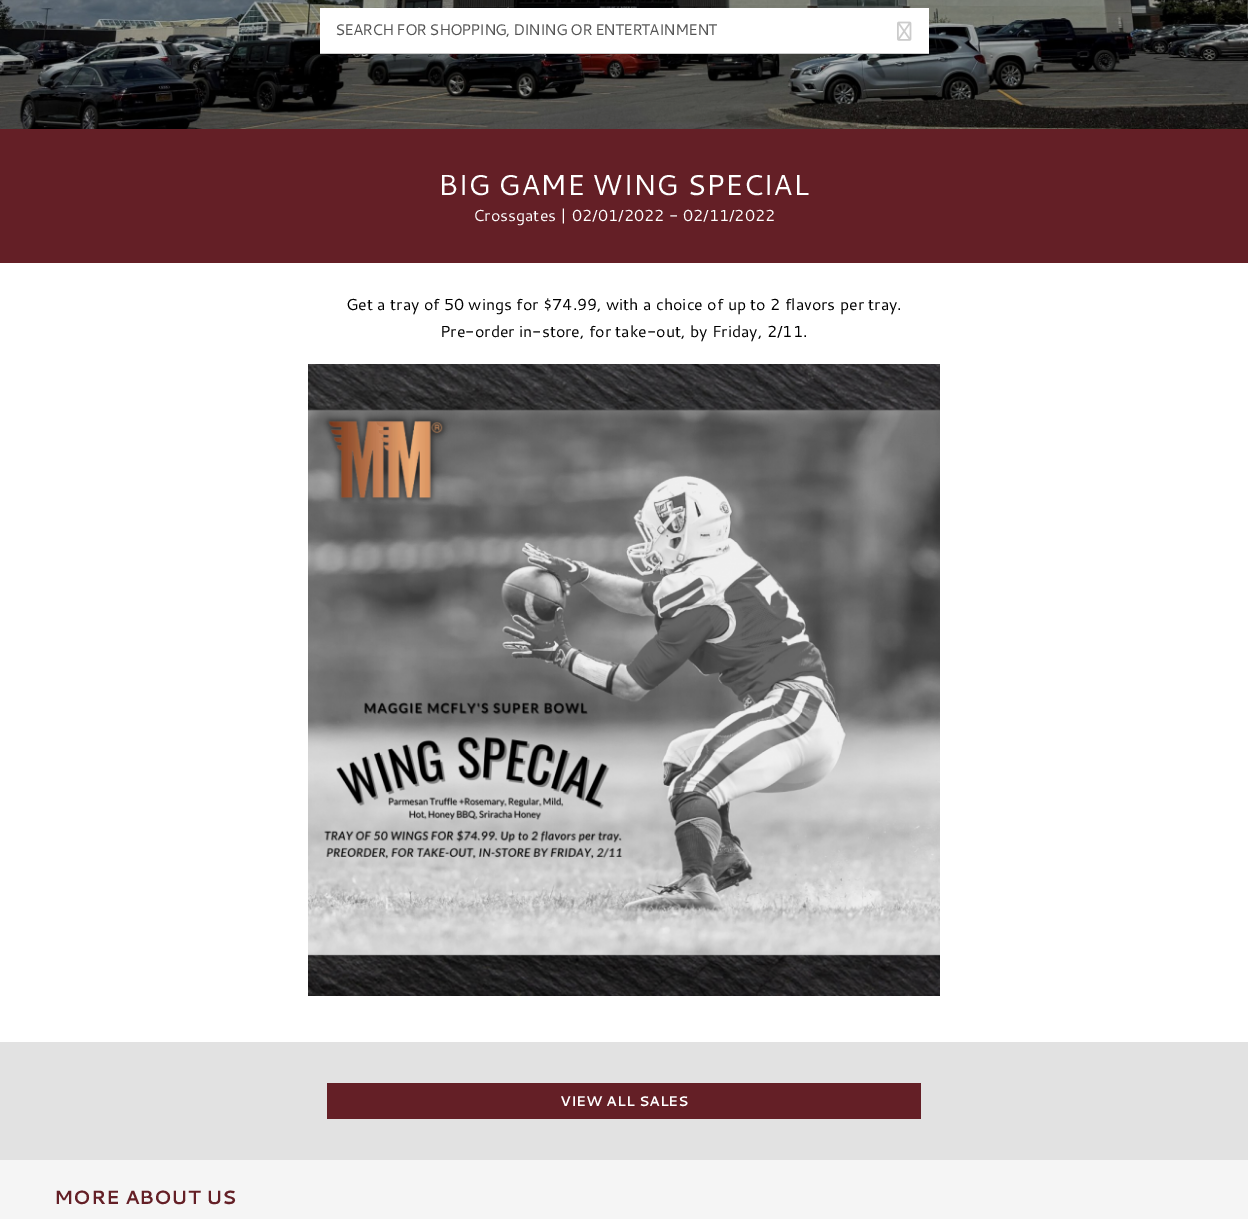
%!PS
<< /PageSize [1248 1219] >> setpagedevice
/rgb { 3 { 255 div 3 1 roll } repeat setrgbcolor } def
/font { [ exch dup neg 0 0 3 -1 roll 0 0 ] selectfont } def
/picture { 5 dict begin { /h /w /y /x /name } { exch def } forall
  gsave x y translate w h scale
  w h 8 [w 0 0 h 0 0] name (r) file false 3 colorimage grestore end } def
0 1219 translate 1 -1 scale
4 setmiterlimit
226 226 226 rgb
0 0 1248 1219 rectfill
(img/1.rgb) 0 0 1248 129 picture
255 255 255 rgb
320 8 609 45 rectfill
204 204 204 rgb
320 53 609 1 rectfill
(img/2.rgb) 897 21 15 20 picture
100 31 38 rgb
0 129 1248 134 rectfill
255 255 255 rgb
0 263 1248 779 rectfill
(img/3.rgb) 308 364 632 632 picture
100 31 38 rgb
327 1083 594 36 rectfill
245 245 245 rgb
0 1160 1248 59 rectfill
/Cantarell-Regular 15.4 font
85 85 85 rgb
335 35 moveto -1 0 (SEARCH FOR SHOPPING, DINING OR ENTERTAINMENT) ashow
/Cantarell-Regular 28.75 font
255 255 255 rgb
438 195 moveto (BIG GAME WING SPECIAL) show
/Cantarell-Regular 16 font
473 221 moveto (Crossgates | 02/01/2022 - 02/11/2022) show
0 0 0 rgb
346 310 moveto (Get a tray of 50 wings for $74.99, with a choice of up to 2 flavors per tray.) show
440 337 moveto (Pre-order in-store, for take-out, by Friday, 2/11.) show
/Cantarell-Bold 14 font
255 255 255 rgb
560 1106 moveto (VIEW ALL SALES) show
/Cantarell-Bold 19.25 font
100 31 38 rgb
54 1204 moveto (MORE ABOUT US) show
showpage
